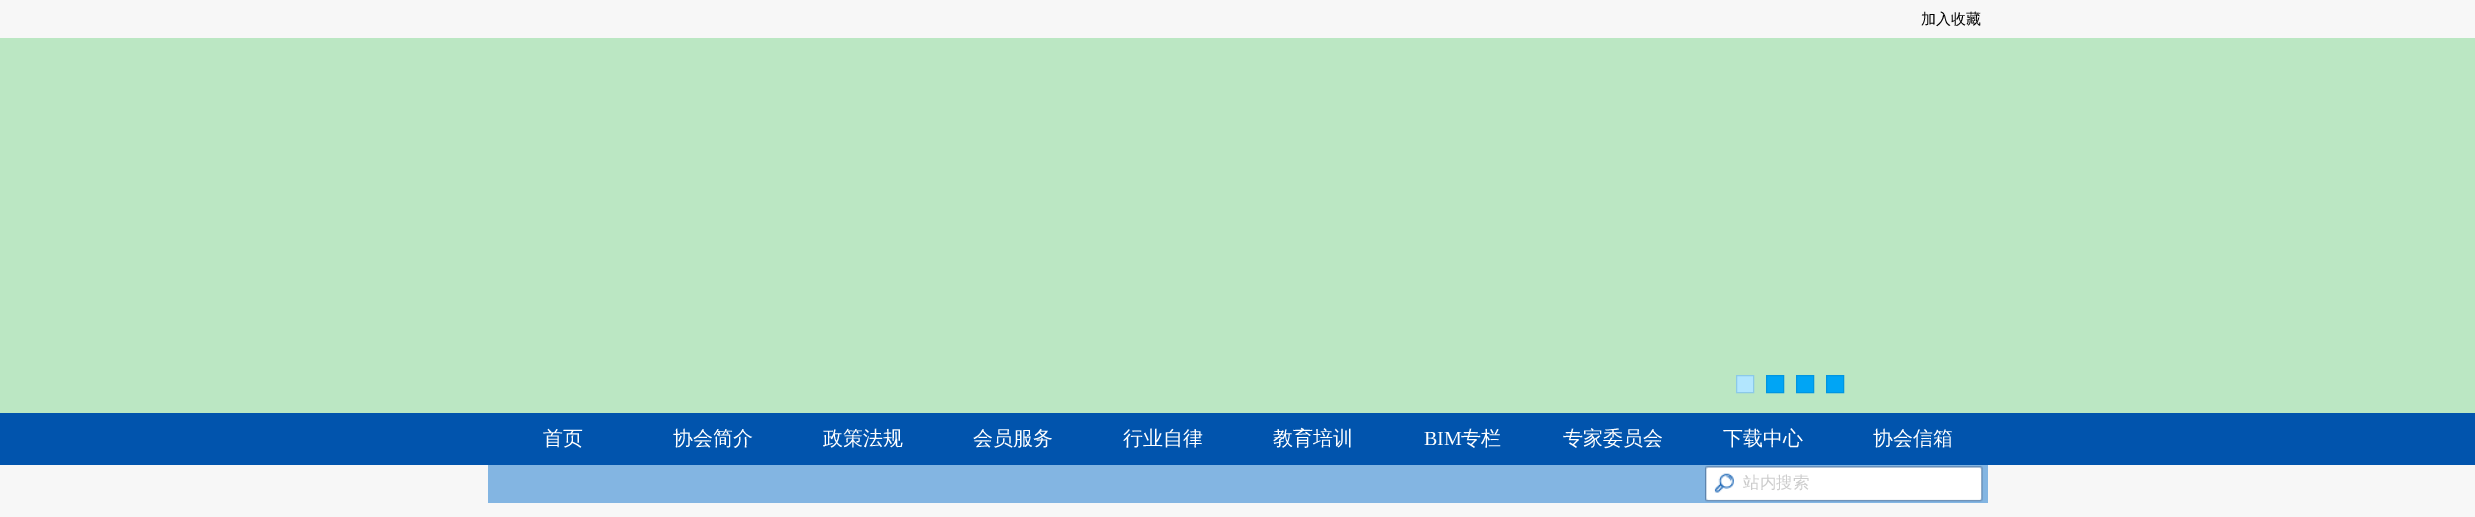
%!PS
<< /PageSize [2475 517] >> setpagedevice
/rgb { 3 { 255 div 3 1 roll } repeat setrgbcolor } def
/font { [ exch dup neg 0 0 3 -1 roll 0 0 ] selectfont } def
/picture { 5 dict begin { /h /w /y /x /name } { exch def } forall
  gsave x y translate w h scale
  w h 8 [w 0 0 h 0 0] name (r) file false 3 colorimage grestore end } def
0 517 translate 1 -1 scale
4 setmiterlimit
247 247 247 rgb
0 0 2475 517 rectfill
187 231 195 rgb
0 38 2475 375 rectfill
178 230 254 rgb
1736.5 375.5 moveto 1753.5 375.5 lineto 1753.5 392.5 lineto 1736.5 392.5 lineto closepath gsave fill grestore
140 201 232 rgb
stroke
0 165 245 rgb
1766.5 375.5 moveto 1783.5 375.5 lineto 1783.5 392.5 lineto 1766.5 392.5 lineto closepath gsave fill grestore
0 149 225 rgb
stroke
0 165 245 rgb
1796.5 375.5 moveto 1813.5 375.5 lineto 1813.5 392.5 lineto 1796.5 392.5 lineto closepath gsave fill grestore
0 149 225 rgb
stroke
0 165 245 rgb
1826.5 375.5 moveto 1843.5 375.5 lineto 1843.5 392.5 lineto 1826.5 392.5 lineto closepath gsave fill grestore
0 149 225 rgb
stroke
1 84 173 rgb
0 413 2475 52 rectfill
131 181 226 rgb
488 465 1500 38 rectfill
(img/1.rgb) 1705 466 278 36 picture
/WenQuanYiZenHei-Medium 15 font
0 0 0 rgb
1921 24 moveto (加入收藏) show
/WenQuanYiZenHei-Medium 20 font
255 255 255 rgb
[
  [(首页) 543 445]
  [(协会简介) 673 445]
  [(政策法规) 823 445]
  [(会员服务) 973 445]
  [(行业自律) 1123 445]
  [(教育培训) 1273 445]
] { aload pop moveto show } forall
/LiberationSerif-Regular 20 font
1424 445 moveto (BIM) show
/WenQuanYiZenHei-Medium 20 font
[
  [(专栏) 1461 445]
  [(专家委员会) 1563 445]
  [(下载中心) 1723 445]
  [(协会信箱) 1873 445]
] { aload pop moveto show } forall
gsave
1743 471 231 25 rectclip
/WenQuanYiZenHei-Medium 16.5 font
204 204 204 rgb
1743 488 moveto (站内搜索) show
grestore
showpage
